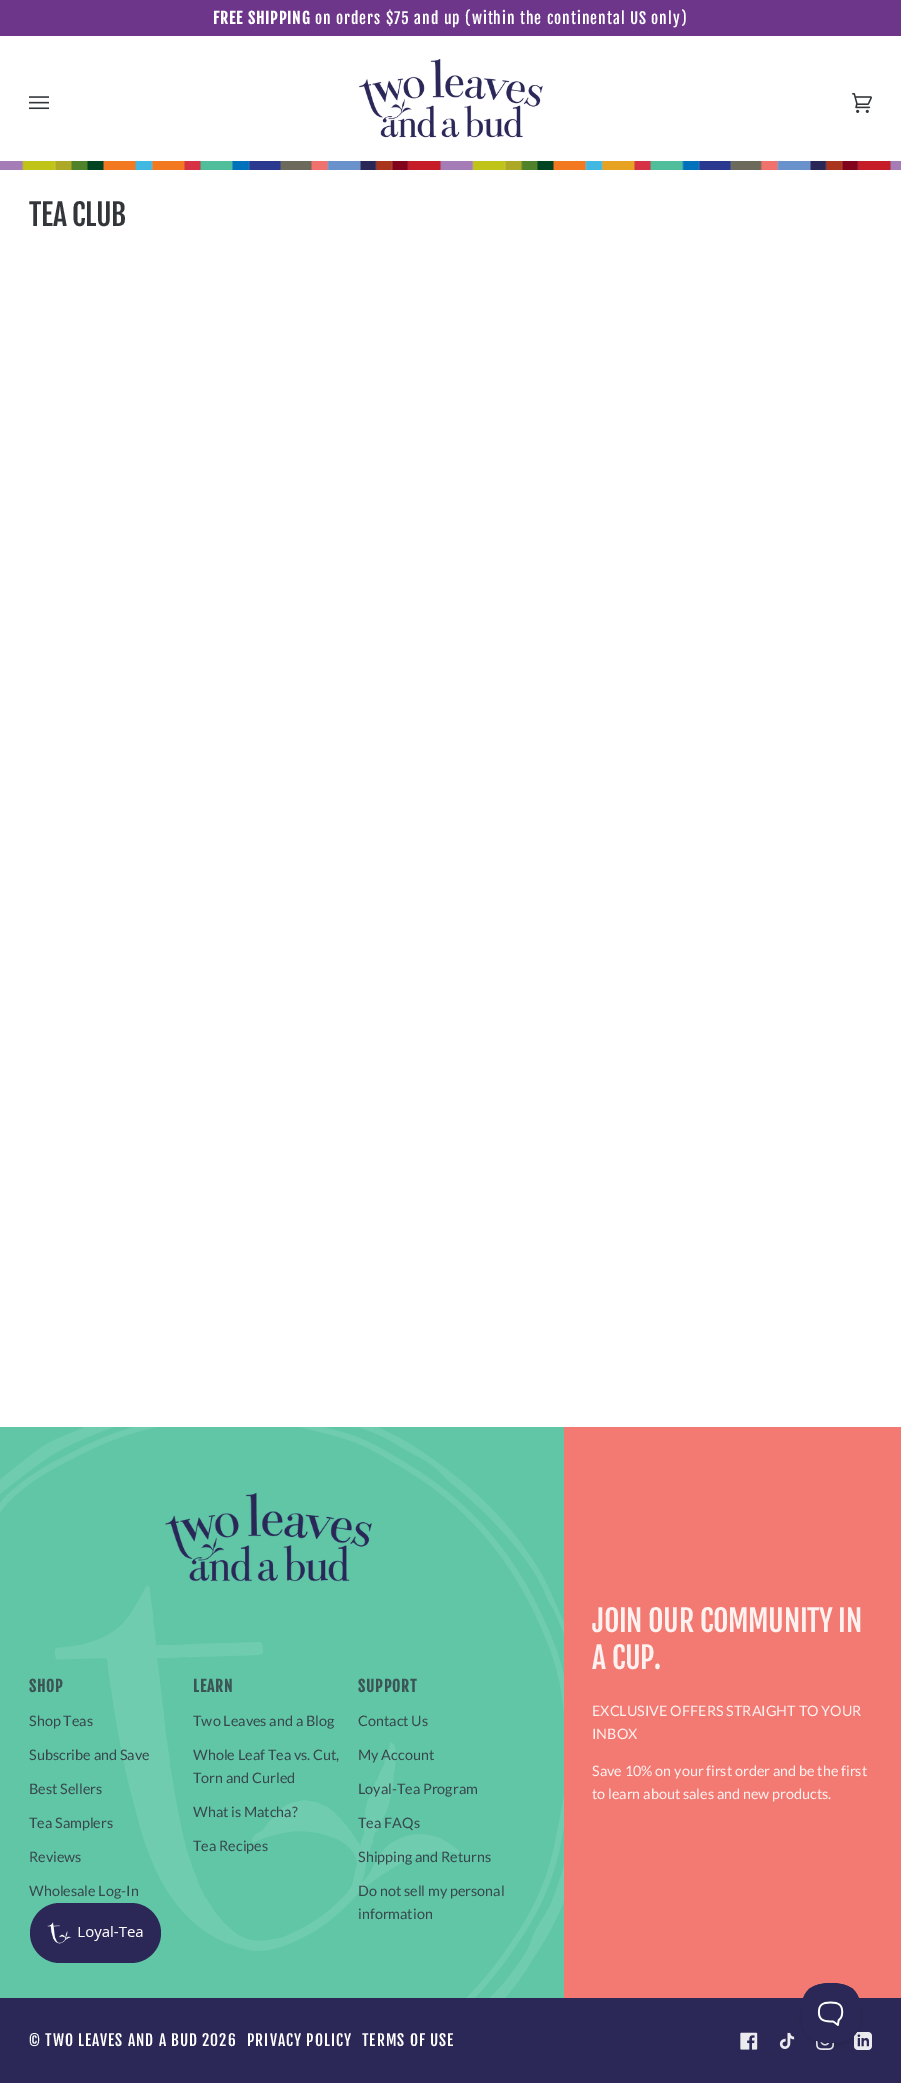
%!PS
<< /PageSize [901 2083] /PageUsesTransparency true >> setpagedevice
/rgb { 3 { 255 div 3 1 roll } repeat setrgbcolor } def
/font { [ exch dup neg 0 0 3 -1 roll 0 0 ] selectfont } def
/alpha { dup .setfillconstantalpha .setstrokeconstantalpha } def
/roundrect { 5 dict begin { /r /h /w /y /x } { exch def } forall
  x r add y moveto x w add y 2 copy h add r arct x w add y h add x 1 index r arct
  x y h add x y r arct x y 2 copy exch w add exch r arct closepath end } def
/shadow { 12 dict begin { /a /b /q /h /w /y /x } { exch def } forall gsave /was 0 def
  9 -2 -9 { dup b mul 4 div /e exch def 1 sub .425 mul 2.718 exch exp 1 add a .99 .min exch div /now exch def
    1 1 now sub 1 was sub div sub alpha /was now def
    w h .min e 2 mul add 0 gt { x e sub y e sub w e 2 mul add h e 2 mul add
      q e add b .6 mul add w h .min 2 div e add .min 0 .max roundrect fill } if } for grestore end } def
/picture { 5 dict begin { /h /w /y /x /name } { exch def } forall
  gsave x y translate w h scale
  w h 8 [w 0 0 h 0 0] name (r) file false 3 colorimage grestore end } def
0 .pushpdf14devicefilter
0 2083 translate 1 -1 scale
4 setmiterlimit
255 255 255 rgb
0 0 901 2083 rectfill
110 54 139 rgb
0 0 901 36 rectfill
(img/1.rgb) 0 161 901 9 picture
(img/2.rgb) 29 96 20 14 picture
(img/3.rgb) 359 59 184 79 picture
(img/4.rgb) 852 93 20 20 picture
96 198 166 rgb
0 1427 564 571 rectfill
(img/5.rgb) 0 1427 564 571 picture
(img/6.rgb) 165 1493 207 89 picture
243 122 115 rgb
564 1427 337 571 rectfill
43 40 87 rgb
0 1998 901 85 rectfill
(img/7.rgb) 740 2032 18 18 picture
(img/8.rgb) 779 2032 16 17 picture
(img/9.rgb) 816 2040 18 10 picture
(img/10.rgb) 854 2032 18 18 picture
30 1903 131 60 30 roundrect fill
(img/11.rgb) 47 1922 96 22 picture
0 0 0 rgb
801 1987 60 60 30 3.5 0.1 shadow
(img/12.rgb) 802 1983 58 60 picture
/FjallaOne-Bold 15.4 font
255 255 255 rgb
213 24 moveto 1 0 (FREE SHIPPING) ashow
/FjallaOne-Regular 15.4 font
315 24 moveto 1 0 (on orders $75 and up \(within the continental US only\)) ashow
/FjallaOne-Regular 29.75 font
50 53 57 rgb
29 226 moveto -0.4 0 (TEA CLUB) ashow
/FjallaOne-Bold 15.4 font
59 84 86 rgb
29 1692 moveto 1 0 (SHOP) ashow
/Lato-Regular 14.4 font
55 71 77 rgb
[
  [(Shop Teas) 29 1726]
  [(Subscribe and Save) 29 1760]
  [(Best Sellers) 29 1794]
  [(Tea Samplers) 29 1828]
  [(Reviews) 29 1862]
  [(Wholesale Log-In) 29 1896]
] { aload pop moveto show } forall
/FjallaOne-Bold 15.4 font
59 84 86 rgb
193 1692 moveto 1 0 (LEARN) ashow
/Lato-Regular 14.4 font
55 71 77 rgb
[
  [(Two Leaves and a Blog) 193 1726]
  [(Whole Leaf Tea vs. Cut,) 193 1760]
  [(Torn and Curled) 193 1783]
  [(What is Matcha?) 193 1817]
  [(Tea Recipes) 193 1851]
] { aload pop moveto show } forall
/FjallaOne-Bold 15.4 font
59 84 86 rgb
358 1692 moveto 1 0 (SUPPORT) ashow
/Lato-Regular 14.4 font
55 71 77 rgb
[
  [(Contact Us) 358 1726]
  [(My Account) 358 1760]
  [(Loyal-Tea Program) 358 1794]
  [(Tea FAQs) 358 1828]
  [(Shipping and Returns) 358 1862]
  [(Do not sell my personal) 358 1896]
  [(information) 358 1919]
] { aload pop moveto show } forall
/FjallaOne-Regular 29.75 font
254 242 241 rgb
592 1632 moveto -0.4 0 (JOIN OUR COMMUNITY IN) ashow
592 1669 moveto -0.4 0 (A CUP.) ashow
/Lato-Regular 14.4 font
[
  [(EXCLUSIVE OFFERS STRAIGHT TO YOUR) 592 1716]
  [(INBOX) 592 1739]
  [(Save 10% on your first order and be the first) 592 1776]
  [(to learn about sales and new products.) 592 1799]
] { aload pop moveto show } forall
/FjallaOne-Regular 15.4 font
255 255 255 rgb
29 2046 moveto 1 0 (© TWO LEAVES AND A BUD) ashow
202 2046 moveto 1 0 (2026) ashow
247 2046 moveto 1 0 (PRIVACY POLICY) ashow
362 2046 moveto 1 0 (TERMS OF USE) ashow
.poppdf14devicefilter showpage
